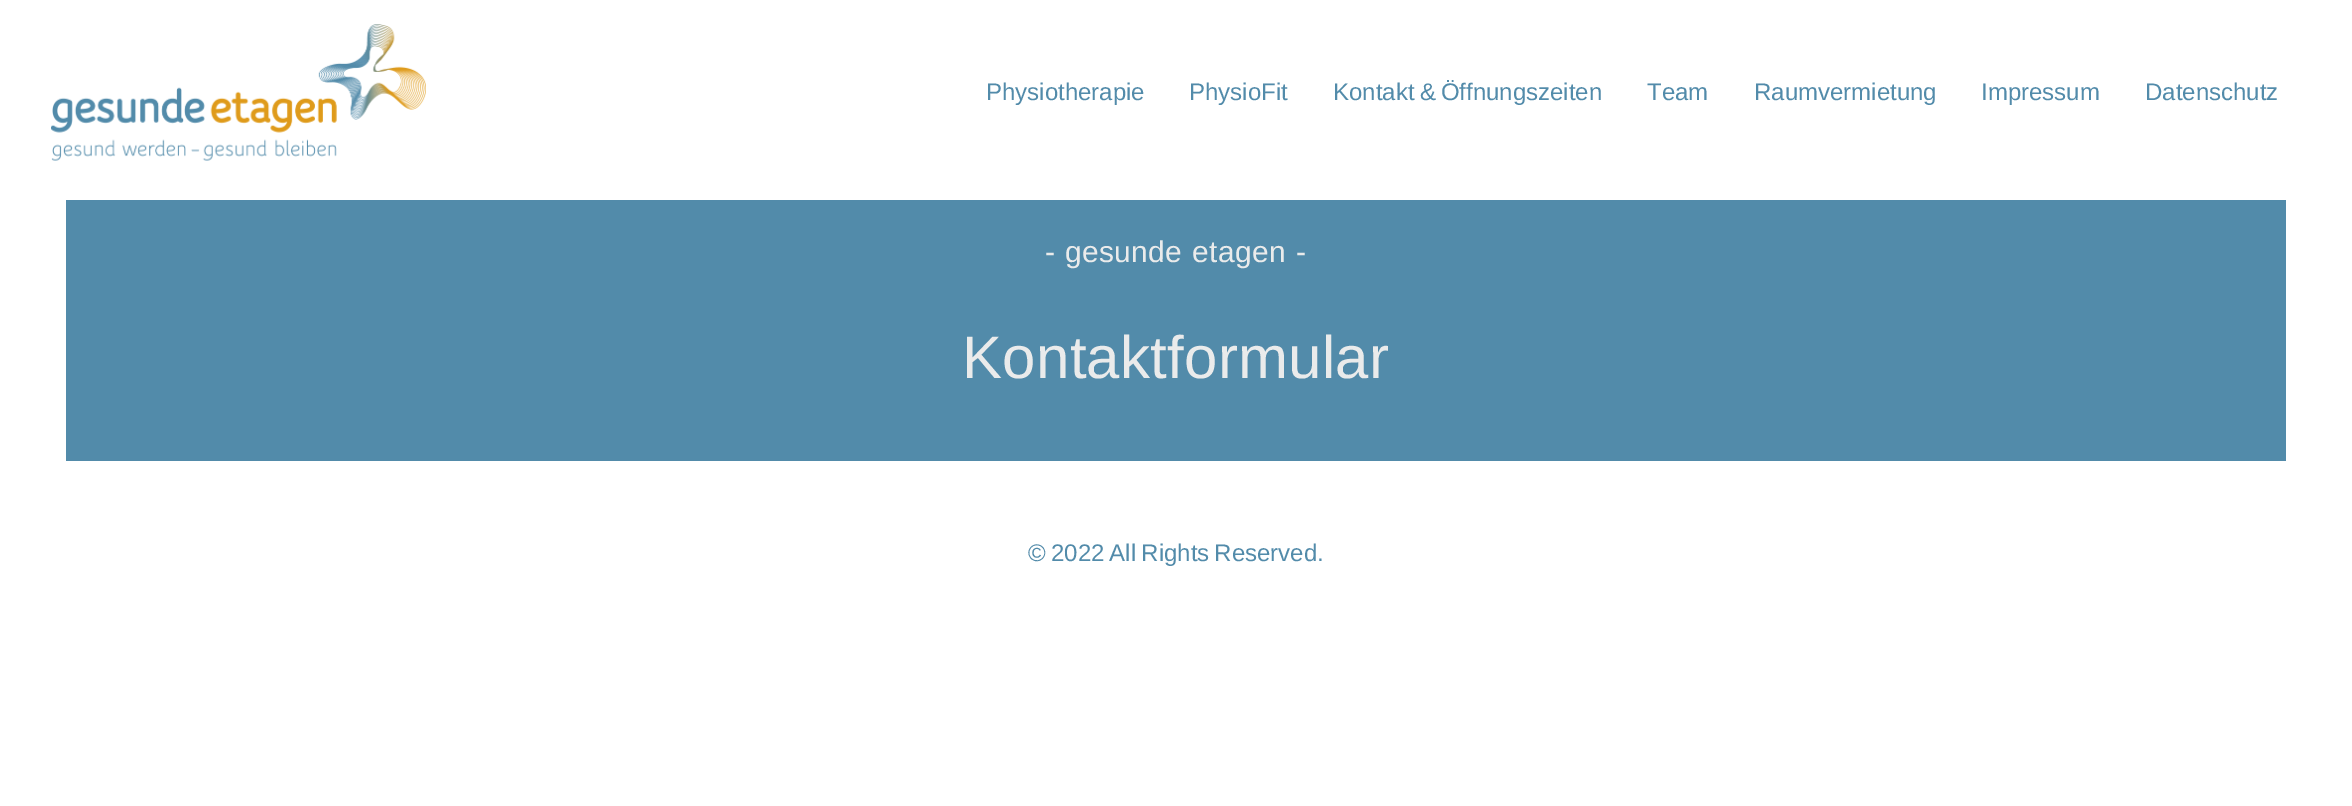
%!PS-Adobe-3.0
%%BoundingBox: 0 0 2352 806
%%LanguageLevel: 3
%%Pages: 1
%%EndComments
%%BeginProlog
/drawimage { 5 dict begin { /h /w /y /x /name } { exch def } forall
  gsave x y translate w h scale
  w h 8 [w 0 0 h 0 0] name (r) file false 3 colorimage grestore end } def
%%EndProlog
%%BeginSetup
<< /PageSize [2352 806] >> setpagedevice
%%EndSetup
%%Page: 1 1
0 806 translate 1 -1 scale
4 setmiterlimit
1 setgray
0 0 2352 806 rectfill
(images/1.raw) 51 24 375 137 drawimage
0.322 0.545 0.667 setrgbcolor
66 200 2220 261 rectfill
/LiberationSans-Regular [24 0 0 -24 0 0] selectfont
986 100 moveto (Physiotherapie) show
1189 100 moveto (PhysioFit) show
1333 100 moveto -1.5 0 32 (Kontakt & Öffnungszeiten) widthshow
1647 100 moveto (Team) show
1754 100 moveto (Raumvermietung) show
1981 100 moveto (Impressum) show
2145 100 moveto (Datenschutz) show
/LiberationSans-Regular [30 0 0 -30 0 0] selectfont
0.918 0.922 0.922 setrgbcolor
1045 262 moveto 1.5 0 32 0.25 0 (- gesunde etagen -) awidthshow
/LiberationSans-Regular [60 0 0 -60 0 0] selectfont
962 378 moveto 0.25 0 (Kontaktformular) ashow
/LiberationSans-Regular [24 0 0 -24 0 0] selectfont
0.322 0.545 0.667 setrgbcolor
1028 561 moveto -1.5 0 32 (© 2022 All Rights Reserved.) widthshow
showpage
%%EOF
